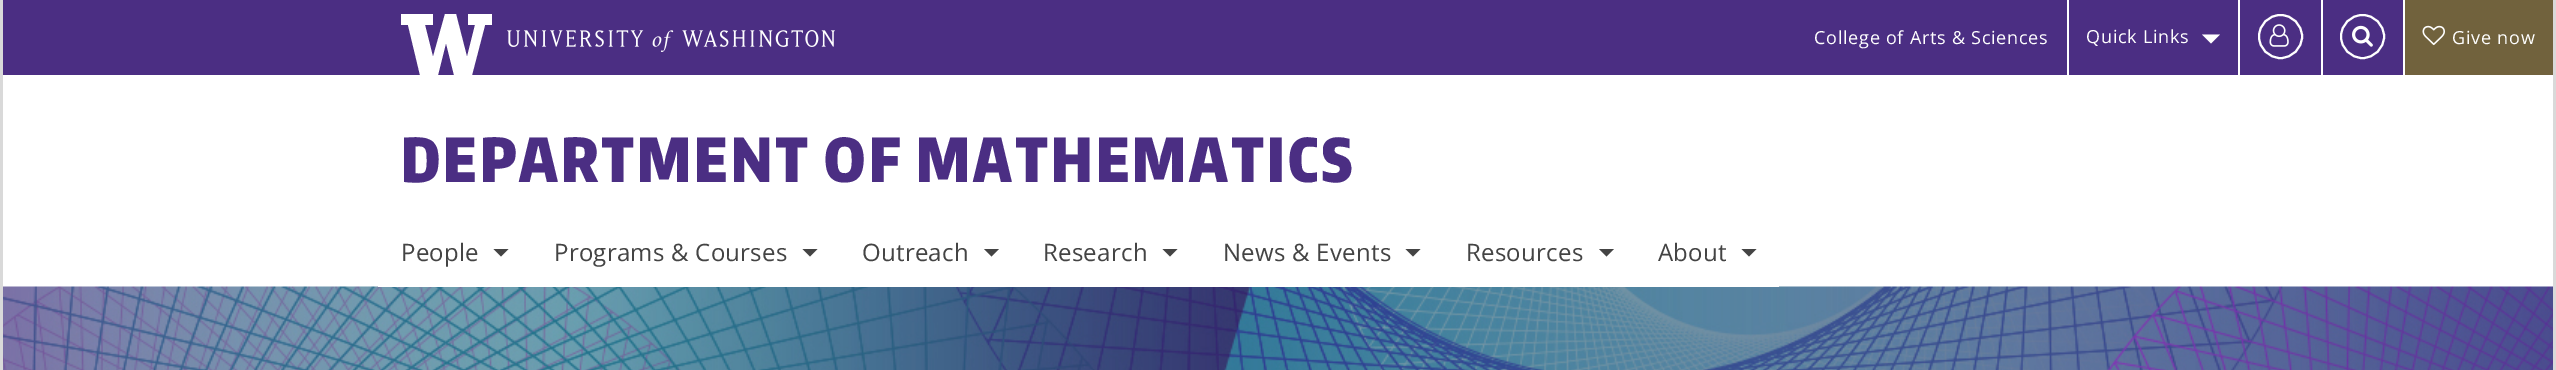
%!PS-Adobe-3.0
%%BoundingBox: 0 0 2556 370
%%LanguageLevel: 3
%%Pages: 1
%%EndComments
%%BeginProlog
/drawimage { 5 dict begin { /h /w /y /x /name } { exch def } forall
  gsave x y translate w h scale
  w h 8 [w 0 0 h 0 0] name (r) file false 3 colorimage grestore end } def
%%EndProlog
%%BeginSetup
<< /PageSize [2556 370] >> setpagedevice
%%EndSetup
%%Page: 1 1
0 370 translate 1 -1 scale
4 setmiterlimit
0.851 setgray
0 0 2556 370 rectfill
1 setgray
3 75 2550 212 rectfill
0.294 0.18 0.514 setrgbcolor
3 0 2400 75 rectfill
gsave
401 14 91 61 rectclip
1 setgray
newpath 468 14 moveto 468 25 lineto 475 25 lineto 467 57 lineto 456 14 lineto 445 14 lineto 433 57 lineto 425 25 lineto 433 25 lineto 433 14 lineto 400 14 lineto 400 25 lineto 408 25 lineto 420 75 lineto 438 75 lineto 446 43 lineto 454 75 lineto 472 75 lineto 485 25 lineto 492 25 lineto 492 14 lineto closepath fill
grestore
(images/1.raw) 507 30 328 22 drawimage
1 setgray
2067 0 2 75 rectfill
newpath 2202 34.5 moveto 2220 34.5 lineto 2211 43.5 lineto closepath fill
2238 0 2 75 rectfill
2 setlinewidth
newpath 2280.5 36.5 21.5 0 360 arc closepath stroke
(images/2.raw) 2269 24 20 23 drawimage
2321 0 2 75 rectfill
newpath 2362.5 36.5 21.5 0 360 arc closepath stroke
(images/3.raw) 2352 25 21 22 drawimage
0.443 0.384 0.239 setrgbcolor
2405 0 148 75 rectfill
1 setgray
2403 0 2 75 rectfill
(images/4.raw) 2422 25 23 21 drawimage
(images/5.raw) 3 286 2550 84 drawimage
378 286 1401 1 rectfill
0.267 setgray
newpath 493.5 249 moveto 508.5 249 lineto 501 256.5 lineto closepath fill
newpath 802.5 249 moveto 817.5 249 lineto 810 256.5 lineto closepath fill
newpath 984 249 moveto 999 249 lineto 991.5 256.5 lineto closepath fill
newpath 1162.5 249 moveto 1177.5 249 lineto 1170 256.5 lineto closepath fill
newpath 1405.5 249 moveto 1420.5 249 lineto 1413 256.5 lineto closepath fill
newpath 1599 249 moveto 1614 249 lineto 1606.5 256.5 lineto closepath fill
newpath 1741.5 249 moveto 1756.5 249 lineto 1749 256.5 lineto closepath fill
/OpenSans-Regular [18 0 0 -18 0 0] selectfont
1 setgray
1814 44 moveto 0.75 0 (College of Arts & Sciences) ashow
2086 43 moveto 0.75 0 (Quick Links) ashow
2452 44 moveto 0.75 0 (Give now) ashow
/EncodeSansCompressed-Black [60 0 0 -60 0 0] selectfont
0.294 0.18 0.514 setrgbcolor
401 182 moveto 3 0 (DEPARTMENT OF MATHEMATICS) ashow
/OpenSans-Regular [24 0 0 -24 0 0] selectfont
0.267 setgray
401 261 moveto 0.25 0 (People) ashow
554 261 moveto 0.25 0 (Programs & Courses) ashow
862 261 moveto 0.25 0 (Outreach) ashow
1043 261 moveto 0.25 0 (Research) ashow
1223 261 moveto 0.25 0 (News & Events) ashow
1466 261 moveto 0.25 0 (Resources) ashow
1658 261 moveto 0.25 0 (About) ashow
showpage
%%EOF
